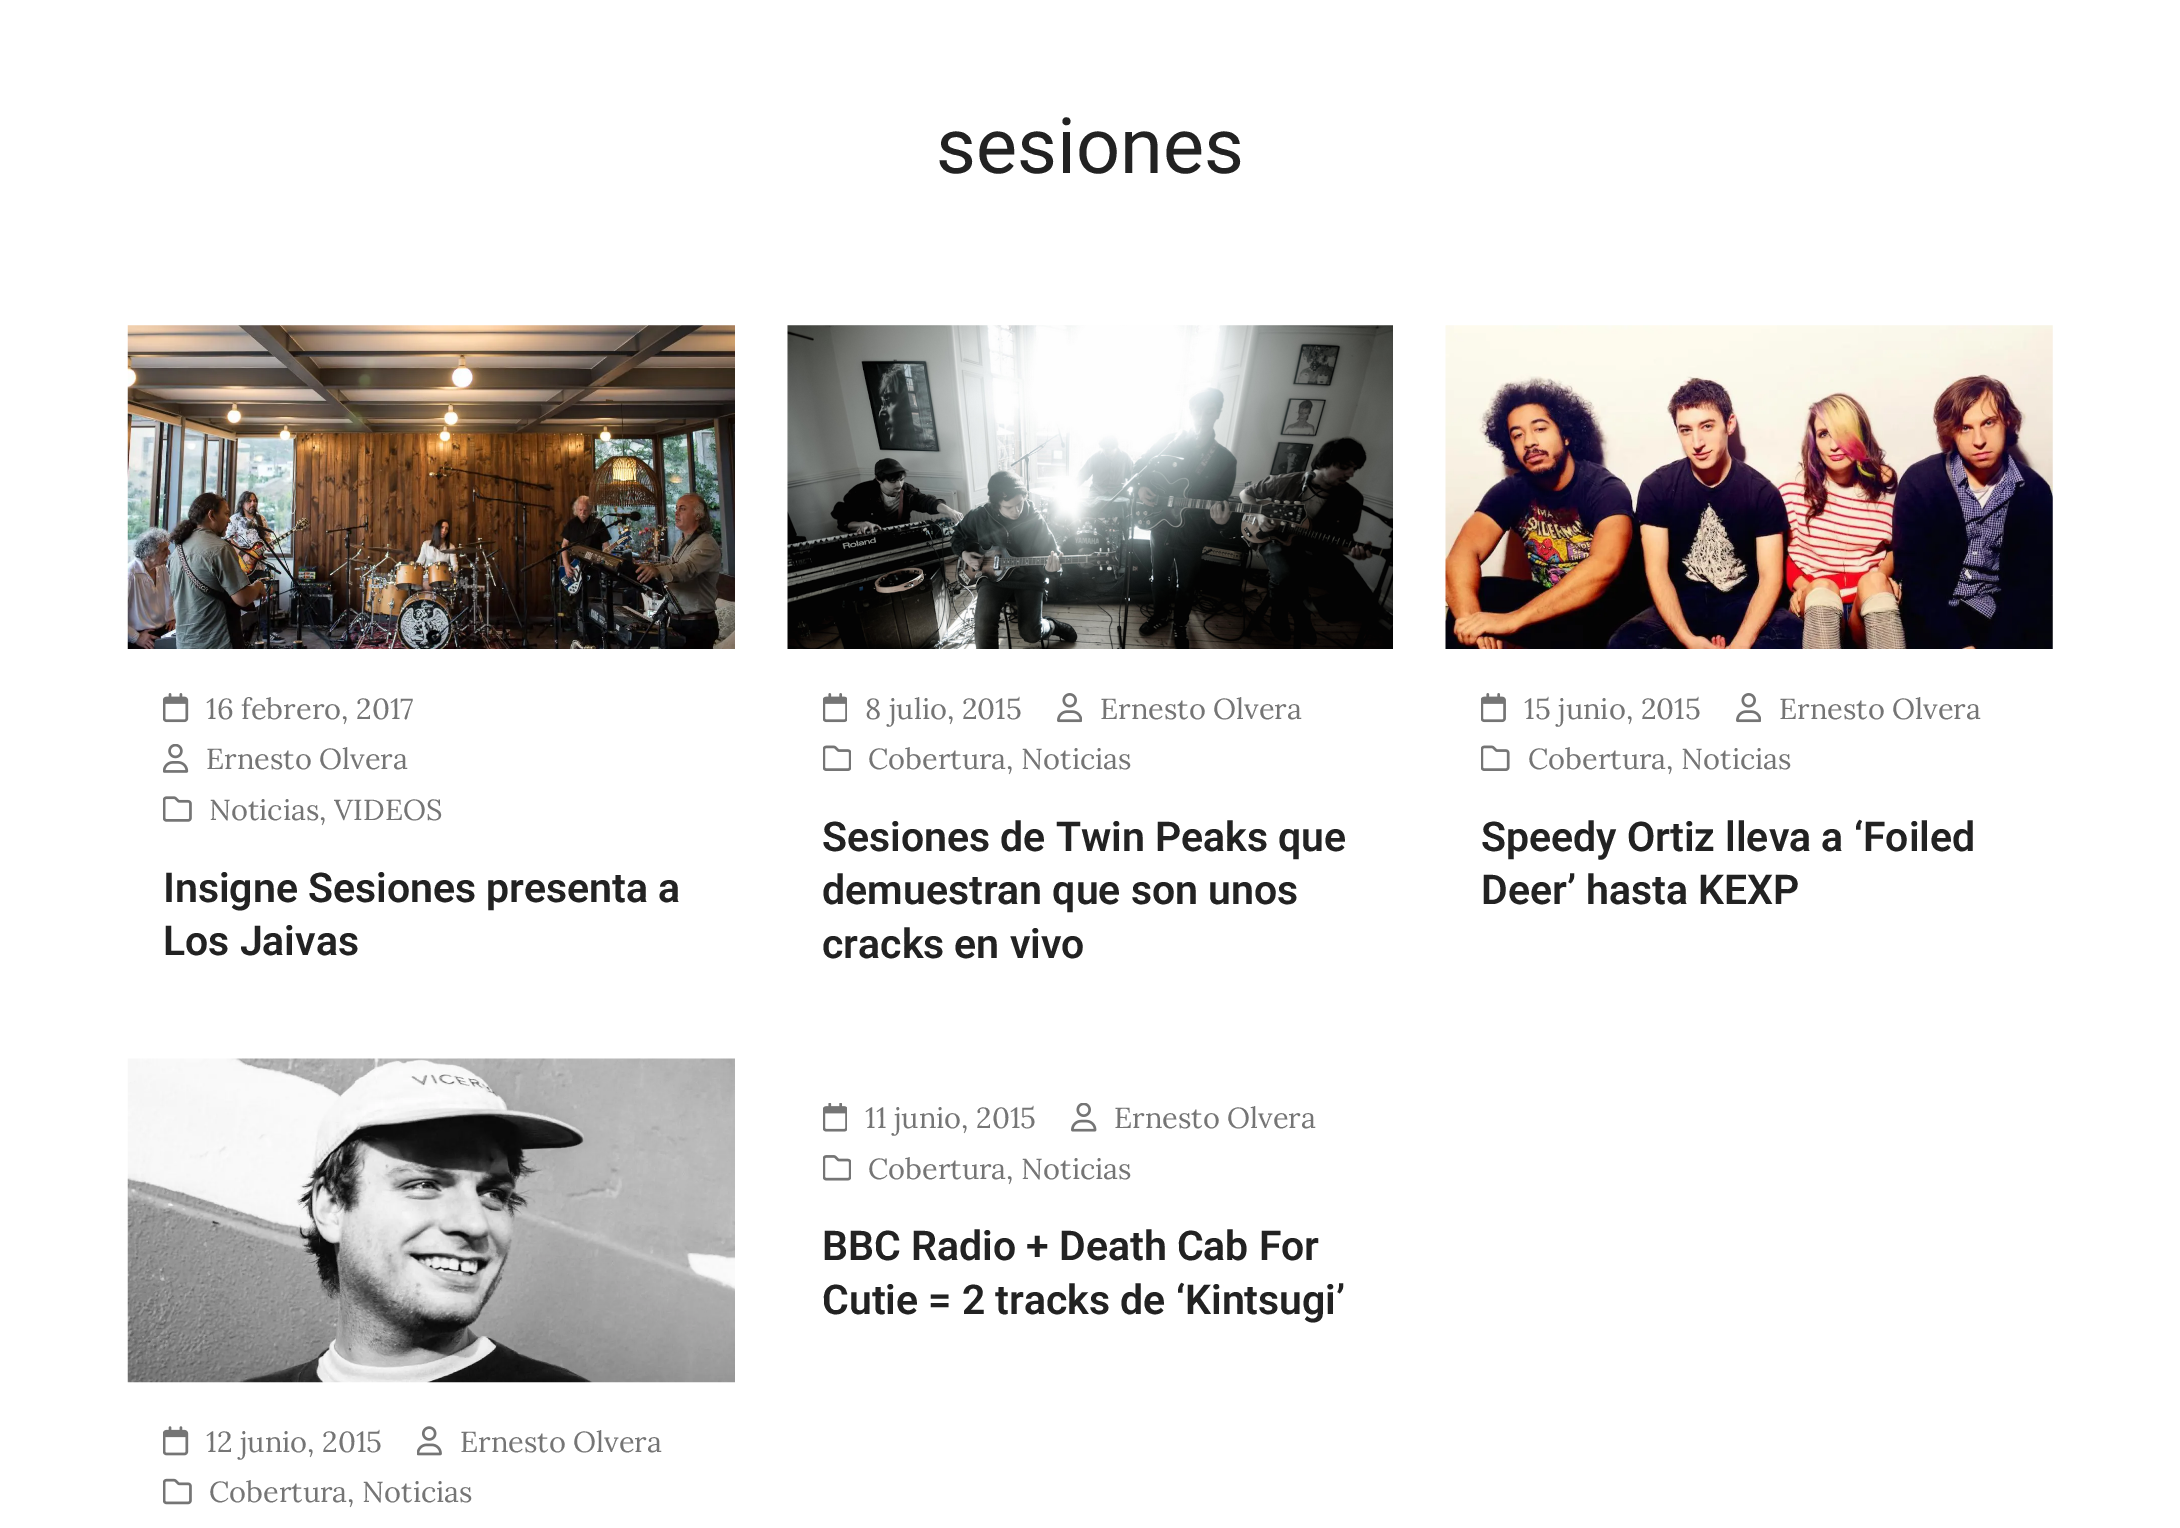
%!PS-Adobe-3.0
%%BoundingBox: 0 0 2180 1528
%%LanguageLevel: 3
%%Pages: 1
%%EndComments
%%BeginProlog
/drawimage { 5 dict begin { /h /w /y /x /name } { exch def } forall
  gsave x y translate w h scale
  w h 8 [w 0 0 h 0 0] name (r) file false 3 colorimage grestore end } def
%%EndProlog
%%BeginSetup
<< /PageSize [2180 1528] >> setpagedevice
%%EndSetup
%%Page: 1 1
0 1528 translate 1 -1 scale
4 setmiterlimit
1 setgray
0 0 2180 1528 rectfill
(images/1.raw) 127 325 608 324 drawimage
(images/2.raw) 163 693 26 30 drawimage
(images/3.raw) 163 744 26 29 drawimage
(images/4.raw) 163 796 29 26 drawimage
(images/5.raw) 787 325 606 324 drawimage
(images/6.raw) 823 693 24 30 drawimage
(images/7.raw) 1057 693 25 30 drawimage
(images/8.raw) 823 745 28 26 drawimage
(images/9.raw) 1445 325 608 324 drawimage
(images/10.raw) 1481 693 25 30 drawimage
(images/7.raw) 1736 693 25 30 drawimage
(images/11.raw) 1481 745 29 26 drawimage
(images/12.raw) 823 1103 24 29 drawimage
(images/13.raw) 1071 1103 26 29 drawimage
(images/14.raw) 823 1155 28 26 drawimage
(images/15.raw) 127 1058 608 325 drawimage
(images/16.raw) 163 1426 26 30 drawimage
(images/17.raw) 417 1426 25 30 drawimage
(images/18.raw) 163 1478 29 27 drawimage
/Roboto-Regular [77.5 0 0 -77.5 0 0] selectfont
0.133 setgray
936 173 moveto (sesiones) show
/Lora-Regular [29 0 0 -29 0 0] selectfont
0.459 setgray
206 719 moveto (16 febrero, 2017) show
206 769 moveto (Ernesto Olvera) show
209 820 moveto (Noticias, VIDEOS) show
/Roboto-SemiBold [41 0 0 -41 0 0] selectfont
0.133 setgray
163 902 moveto (Insigne Sesiones presenta a) show
163 955 moveto (Los Jaivas) show
/Lora-Regular [29 0 0 -29 0 0] selectfont
0.459 setgray
865 719 moveto (8 julio, 2015) show
1100 719 moveto (Ernesto Olvera) show
868 769 moveto (Cobertura, Noticias) show
/Roboto-SemiBold [41 0 0 -41 0 0] selectfont
0.133 setgray
822 851 moveto (Sesiones de Twin Peaks que) show
822 904 moveto (demuestran que son unos) show
822 958 moveto (cracks en vivo) show
/Lora-Regular [29 0 0 -29 0 0] selectfont
0.459 setgray
1524 719 moveto (15 junio, 2015) show
1779 719 moveto (Ernesto Olvera) show
1528 769 moveto (Cobertura, Noticias) show
/Roboto-SemiBold [41 0 0 -41 0 0] selectfont
0.133 setgray
1481 851 moveto (Speedy Ortiz lleva a ‘Foiled) show
1481 904 moveto (Deer’ hasta KEXP) show
/Lora-Regular [29 0 0 -29 0 0] selectfont
0.459 setgray
865 1128 moveto (11 junio, 2015) show
1114 1128 moveto (Ernesto Olvera) show
868 1179 moveto (Cobertura, Noticias) show
/Roboto-SemiBold [41 0 0 -41 0 0] selectfont
0.133 setgray
822 1260 moveto (BBC Radio + Death Cab For) show
822 1314 moveto (Cutie = 2 tracks de ‘Kintsugi’) show
/Lora-Regular [29 0 0 -29 0 0] selectfont
0.459 setgray
206 1452 moveto (12 junio, 2015) show
460 1452 moveto (Ernesto Olvera) show
209 1502 moveto (Cobertura, Noticias) show
showpage
%%EOF
